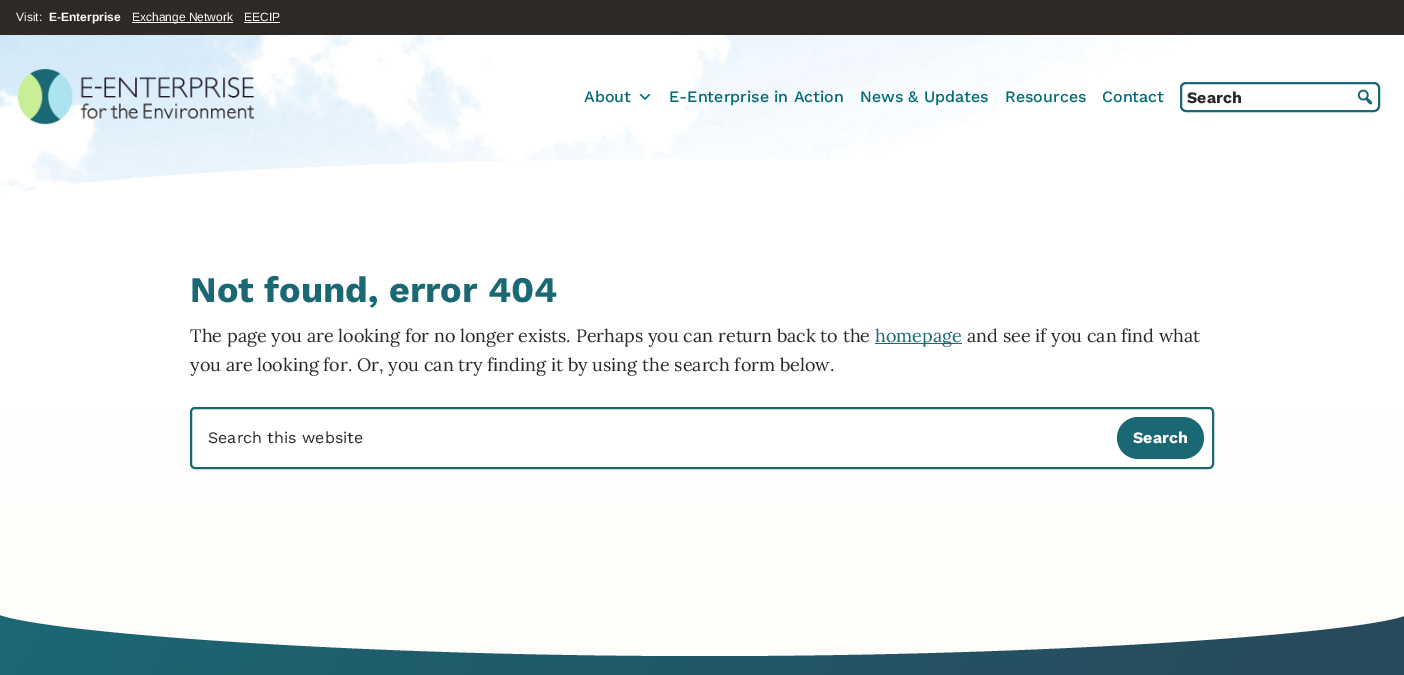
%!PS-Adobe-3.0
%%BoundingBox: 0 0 1404 675
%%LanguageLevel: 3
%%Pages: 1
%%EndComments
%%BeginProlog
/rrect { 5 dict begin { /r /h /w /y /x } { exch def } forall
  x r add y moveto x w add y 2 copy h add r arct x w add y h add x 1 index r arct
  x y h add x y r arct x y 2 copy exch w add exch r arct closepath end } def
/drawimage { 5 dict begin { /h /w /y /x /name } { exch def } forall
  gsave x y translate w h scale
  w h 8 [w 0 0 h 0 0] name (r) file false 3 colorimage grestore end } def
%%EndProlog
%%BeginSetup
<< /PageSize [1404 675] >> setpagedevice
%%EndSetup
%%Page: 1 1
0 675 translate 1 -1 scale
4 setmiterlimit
1 setgray
0 0 1404 675 rectfill
(images/1.raw) 0 35 1404 163 drawimage
0.176 0.161 0.149 setrgbcolor
0 0 1404 35 rectfill
1 0.996 0.984 setrgbcolor
132 22 101 1 rectfill
244 22 36 1 rectfill
(images/2.raw) 17 68 238 57 drawimage
(images/3.raw) 639 93 12 7 drawimage
0.106 0.408 0.459 setrgbcolor
2 setlinewidth
1181 83 198 28 5 rrect stroke
(images/4.raw) 1357 89 16 16 drawimage
1 setgray
newpath 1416 205 moveto 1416 182 1097 159 704 159 curveto 310 159 -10 182 -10 205 curveto closepath fill
gsave newpath 0 409 moveto 1404 409 lineto 1404 611 lineto 0 611 lineto closepath clip newpath
<< /ShadingType 2 /ColorSpace /DeviceRGB /Coords [702 205 702 613] /Extend [true true] /Function << /FunctionType 2 /Domain [0 1] /C0 [1 1 1] /C1 [1 0.992 0.98] /N 1 >> >> shfill grestore
0.106 0.408 0.459 setrgbcolor
875 343 87 1 rectfill
1 setgray
191 408 1022 60 4 rrect gsave fill grestore
0.106 0.408 0.459 setrgbcolor
stroke
1117 417 87 42 21 rrect fill
gsave newpath 0 615 moveto 1404 615 lineto 1404 675 lineto 0 675 lineto closepath clip newpath
<< /ShadingType 2 /ColorSpace /DeviceRGB /Coords [35 551 1369 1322] /Extend [true true] /Function << /FunctionType 3 /Domain [0 1] /Functions [<< /FunctionType 2 /Domain [0 1] /C0 [0.106 0.408 0.459] /C1 [0.153 0.294 0.361] /N 1 >> << /FunctionType 2 /Domain [0 1] /C0 [0.153 0.294 0.361] /C1 [0.153 0.294 0.361] /N 1 >>] /Bounds [0.75] /Encode [0 1 0 1] >> >> shfill grestore
1 0.992 0.98 setrgbcolor
newpath 0 615 moveto 47 632 345 656 704 656 curveto 1061 656 1355 633 1404 616 curveto 1404 611 lineto 0 611 lineto closepath fill
/LiberationSans-Regular [12 0 0 -12 0 0] selectfont
1 0.996 0.984 setrgbcolor
16 21 moveto (Visit:) show
/LiberationSans-Bold [12 0 0 -12 0 0] selectfont
49 21 moveto (E-Enterprise) show
/LiberationSans-Regular [12 0 0 -12 0 0] selectfont
132 21 moveto (Exchange Network) show
244 21 moveto (EECIP) show
/WorkSans-Medium [16 0 0 -16 0 0] selectfont
0.016 0.42 0.463 setrgbcolor
584 102 moveto (About) show
669 102 moveto (E-Enterprise in Action) show
860 102 moveto (News & Updates) show
1005 102 moveto (Resources) show
1102 102 moveto (Contact) show
/WorkSans-Bold [16 0 0 -16 0 0] selectfont
0.176 0.161 0.149 setrgbcolor
1187 103 moveto (Search) show
/WorkSans-Bold [36 0 0 -36 0 0] selectfont
0.106 0.408 0.459 setrgbcolor
190 302 moveto (Not found, error 404) show
/Lora-Regular [18 0 0 -18 0 0] selectfont
0.176 0.161 0.149 setrgbcolor
190 342 moveto (The page you are looking for no longer exists. Perhaps you can return back to the) show
0.106 0.408 0.459 setrgbcolor
875 342 moveto (homepage) show
0.176 0.161 0.149 setrgbcolor
967 342 moveto (and see if you can find what) show
190 371 moveto (you are looking for. Or, you can try finding it by using the search form below.) show
/WorkSans-Regular [16 0 0 -16 0 0] selectfont
208 443 moveto (Search this website) show
/WorkSans-Bold [16 0 0 -16 0 0] selectfont
1 0.996 0.984 setrgbcolor
1133 443 moveto (Search) show
showpage
%%EOF
